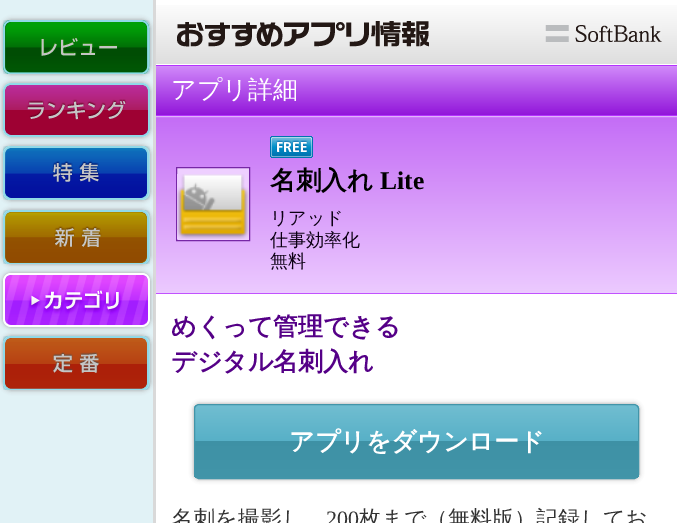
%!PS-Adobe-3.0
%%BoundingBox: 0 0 677 523
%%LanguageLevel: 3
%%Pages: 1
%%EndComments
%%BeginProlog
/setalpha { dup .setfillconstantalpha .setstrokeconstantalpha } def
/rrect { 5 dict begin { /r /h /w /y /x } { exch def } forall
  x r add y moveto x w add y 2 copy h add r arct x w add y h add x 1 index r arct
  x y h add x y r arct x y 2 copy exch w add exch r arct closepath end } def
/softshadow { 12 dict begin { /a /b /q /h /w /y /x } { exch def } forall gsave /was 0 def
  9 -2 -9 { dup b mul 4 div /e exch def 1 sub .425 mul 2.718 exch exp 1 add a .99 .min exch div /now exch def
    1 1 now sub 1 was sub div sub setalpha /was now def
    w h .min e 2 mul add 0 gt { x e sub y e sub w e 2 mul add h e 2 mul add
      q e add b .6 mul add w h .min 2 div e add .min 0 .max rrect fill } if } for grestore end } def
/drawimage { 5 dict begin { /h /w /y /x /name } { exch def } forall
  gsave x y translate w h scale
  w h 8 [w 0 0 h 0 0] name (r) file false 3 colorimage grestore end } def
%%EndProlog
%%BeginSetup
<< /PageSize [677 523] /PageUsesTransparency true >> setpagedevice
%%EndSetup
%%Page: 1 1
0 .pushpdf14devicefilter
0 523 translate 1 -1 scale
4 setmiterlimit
1 setgray
0 0 677 523 rectfill
gsave newpath 156 5 moveto 677 5 lineto 677 64 lineto 156 64 lineto closepath clip newpath
<< /ShadingType 2 /ColorSpace /DeviceRGB /Coords [156 0 156 64] /Extend [true true] /Function << /FunctionType 2 /Domain [0 1] /C0 [1 1 1] /C1 [0.871 0.871 0.871] /N 1 >> >> shfill grestore
(images/1.raw) 177 21 252 26 drawimage
(images/2.raw) 545 25 117 17 drawimage
0.882 0.949 0.965 setrgbcolor
0 0 153 523 rectfill
0.851 setgray
153 0 3 523 rectfill
gsave newpath 156 66 moveto 677 66 lineto 677 115 lineto 156 115 lineto closepath clip newpath
<< /ShadingType 2 /ColorSpace /DeviceRGB /Coords [156 66 156 115] /Extend [true true] /Function << /FunctionType 3 /Domain [0 1] /Functions [<< /FunctionType 2 /Domain [0 1] /C0 [0.894 0.733 0.988] /C1 [0.816 0.533 0.98] /N 1 >> << /FunctionType 2 /Domain [0 1] /C0 [0.816 0.533 0.98] /C1 [0.573 0.086 0.855] /N 1 >>] /Bounds [0.01] /Encode [0 1 0 1] >> >> shfill grestore
0.71 0.2 0.996 setrgbcolor
156 65 521 1 rectfill
0.631 setgray
3 20 147 54 8 2.5 1 softshadow
(images/3.raw) 3 20 147 54 drawimage
gsave newpath 156 116 moveto 677 116 lineto 677 293 lineto 156 293 lineto closepath clip newpath
<< /ShadingType 2 /ColorSpace /DeviceRGB /Coords [156 116 156 293] /Extend [true true] /Function << /FunctionType 3 /Domain [0 1] /Functions [<< /FunctionType 2 /Domain [0 1] /C0 [0.929 0.812 1] /C1 [0.769 0.427 0.965] /N 1 >> << /FunctionType 2 /Domain [0 1] /C0 [0.769 0.427 0.965] /C1 [0.925 0.792 1] /N 1 >>] /Bounds [0.01] /Encode [0 1 0 1] >> >> shfill grestore
0.71 0.2 0.996 setrgbcolor
156 115 521 1 rectfill
0.631 setgray
3 83 147 54 8 2.5 1 softshadow
(images/4.raw) 3 83 147 54 drawimage
3 146 147 54 8 2.5 1 softshadow
(images/5.raw) 3 146 147 54 drawimage
3 210 147 54 8 2.5 1 softshadow
(images/6.raw) 3 210 147 54 drawimage
0.757 0.322 1 setrgbcolor
156 293 521 1 rectfill
0.631 setgray
3 273 147 54 8 2.5 1 softshadow
(images/7.raw) 3 273 147 54 drawimage
3 336 147 54 8 2.5 1 softshadow
(images/8.raw) 3 336 147 54 drawimage
0.933 0.812 1 setrgbcolor
newpath 176.5 167.5 moveto 249.5 167.5 lineto 249.5 240.5 lineto 176.5 240.5 lineto closepath gsave fill grestore
0.467 0.153 0.651 setrgbcolor
stroke
(images/9.raw) 177 174 72 65 drawimage
(images/10.raw) 270 136 43 22 drawimage
0.639 setgray
194 404 445 75 5 2.5 1 softshadow
gsave
194 404 445 75 5 rrect clip newpath
gsave newpath 194 405 moveto 639 405 lineto 639 478 lineto 194 478 lineto closepath clip newpath
<< /ShadingType 2 /ColorSpace /DeviceRGB /Coords [195 405 195 478] /Extend [true true] /Function << /FunctionType 3 /Domain [0 1] /Functions [<< /FunctionType 2 /Domain [0 1] /C0 [0.443 0.745 0.82] /C1 [0.341 0.69 0.78] /N 1 >> << /FunctionType 2 /Domain [0 1] /C0 [0.243 0.569 0.647] /C1 [0.259 0.584 0.663] /N 1 >>] /Bounds [0.5] /Encode [0 1 0 1] >> >> shfill grestore
grestore
0.259 0.584 0.663 setrgbcolor
194.5 404.5 444 74 4.5 rrect stroke
/WenQuanYiZenHei-Medium [25 0 0 -25 0 0] selectfont
1 setgray
171 98 moveto (アプリ詳細) show
/WenQuanYiZenHei-Bold [25.5 0 0 -25.5 0 0] selectfont
0 setgray
270 189 moveto (名刺入れ) show
/LiberationSerif-Bold [25.5 0 0 -25.5 0 0] selectfont
380 189 moveto (Lite) show
/WenQuanYiZenHei-Medium [18 0 0 -18 0 0] selectfont
0.047 0 0.075 setrgbcolor
270 224 moveto (リアッド) show
270 246 moveto (仕事効率化) show
270 267 moveto (無料) show
/WenQuanYiZenHei-Bold [25 0 0 -25 0 0] selectfont
0.333 0 0.529 setrgbcolor
171 335 moveto (めくって管理できる) show
171 370 moveto (デジタル名刺入れ) show
1 setgray
289 450 moveto (アプリをダウンロード) show
/WenQuanYiZenHei-Medium [22 0 0 -22 0 0] selectfont
0.2 setgray
171 526 moveto (名刺を撮影し) show
/LiberationSerif-Regular [22 0 0 -22 0 0] selectfont
326 526 moveto (200) show
/WenQuanYiZenHei-Medium [22 0 0 -22 0 0] selectfont
359 526 moveto (枚まで（無料版）記録してお) show
.poppdf14devicefilter showpage
%%EOF
